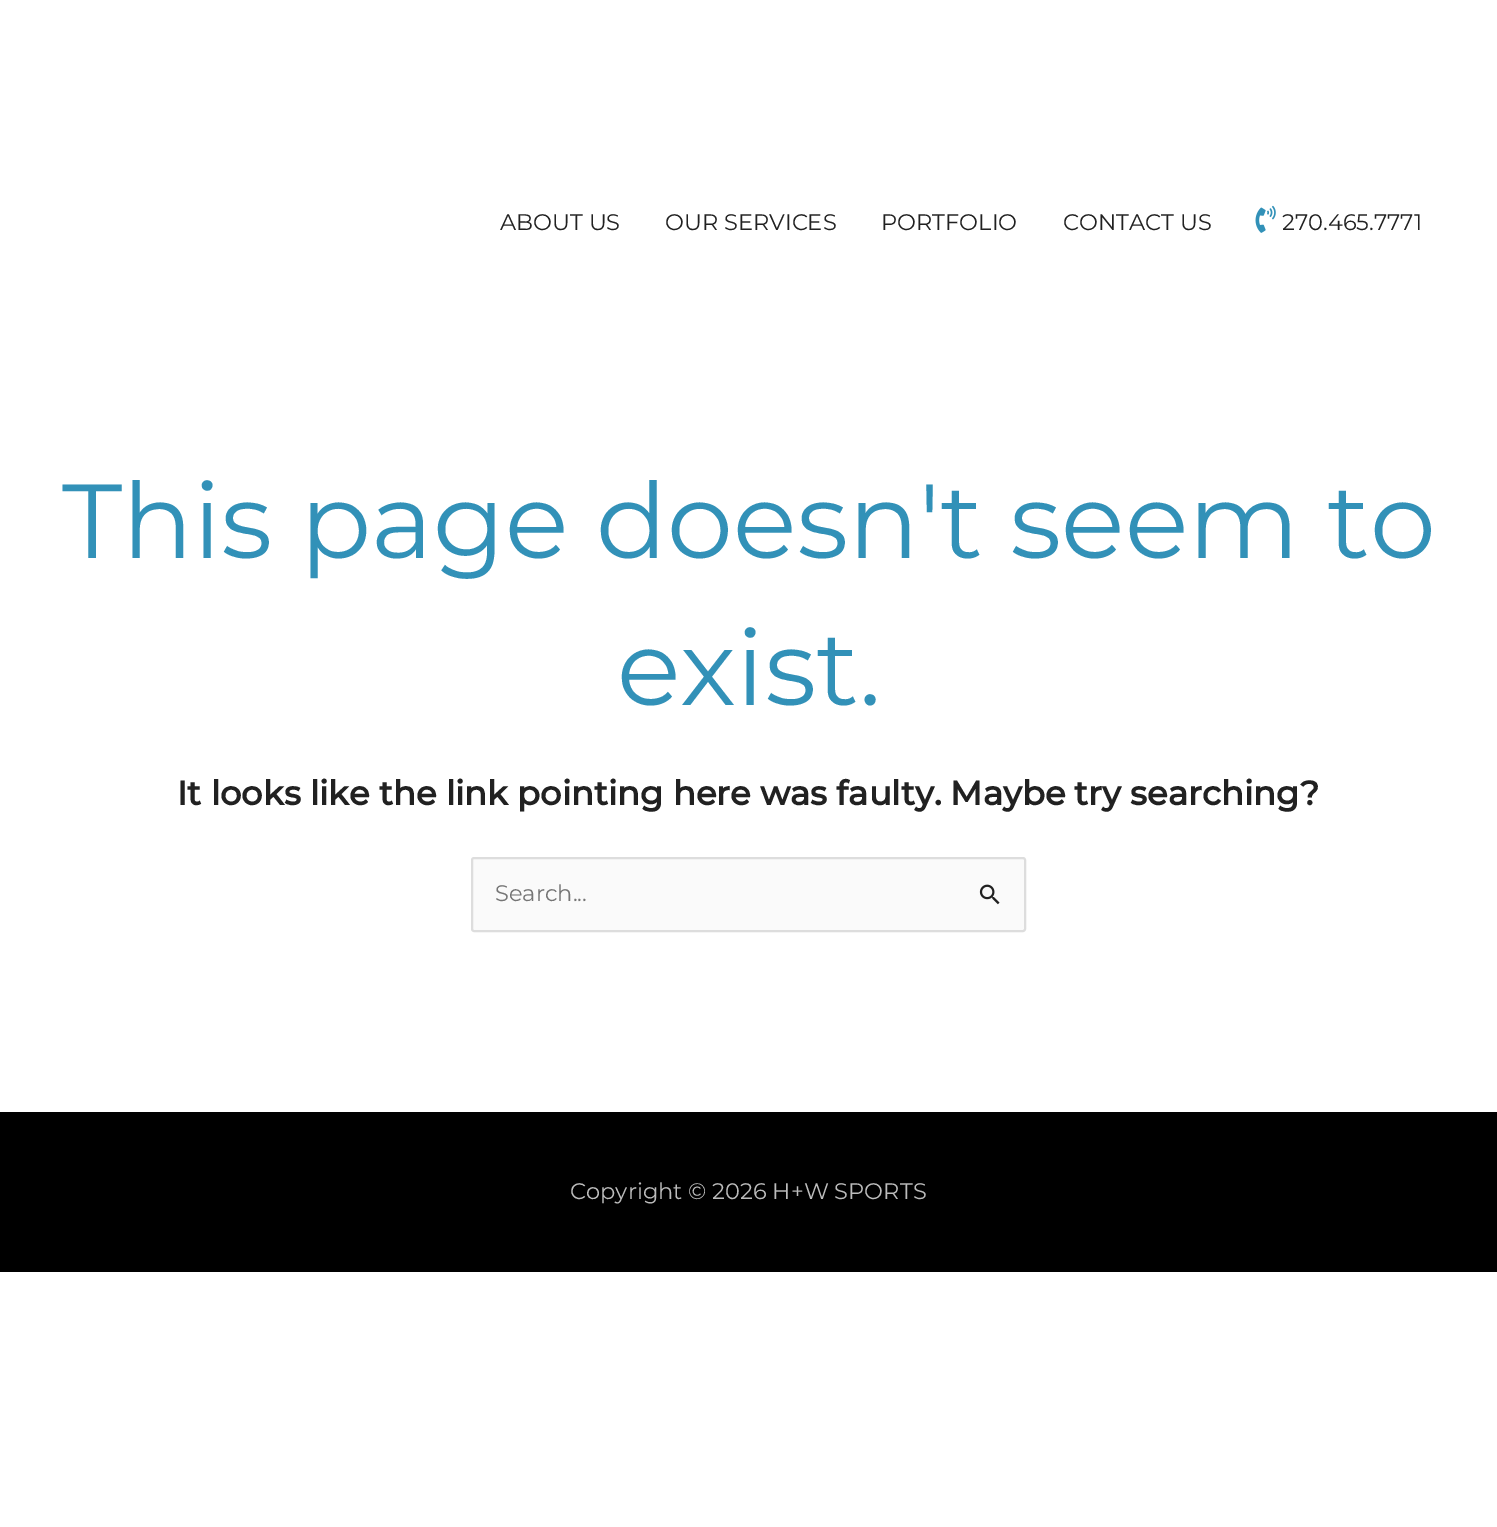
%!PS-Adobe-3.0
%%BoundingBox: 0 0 1497 1527
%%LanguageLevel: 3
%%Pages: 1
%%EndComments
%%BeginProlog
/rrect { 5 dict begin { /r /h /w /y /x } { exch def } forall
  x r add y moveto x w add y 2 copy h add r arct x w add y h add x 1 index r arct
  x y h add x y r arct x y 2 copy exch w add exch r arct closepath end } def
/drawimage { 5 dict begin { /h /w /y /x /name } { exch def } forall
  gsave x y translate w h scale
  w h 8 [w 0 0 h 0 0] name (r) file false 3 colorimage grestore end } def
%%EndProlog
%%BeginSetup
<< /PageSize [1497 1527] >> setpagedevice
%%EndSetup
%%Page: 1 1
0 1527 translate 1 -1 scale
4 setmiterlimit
1 setgray
0 0 1497 1527 rectfill
(images/1.raw) 1255 205 21 28 drawimage
0.98 setgray
472 858 553 73 2 rrect gsave fill grestore
0.867 setgray
2 setlinewidth
stroke
(images/2.raw) 979 884 21 21 drawimage
0 setgray
0 1112 1497 160 rectfill
/Montserrat-Regular [22.5 0 0 -22.5 0 0] selectfont
0.129 setgray
500 230 moveto (ABOUT US) show
665 230 moveto (OUR SERVICES) show
881 230 moveto (PORTFOLIO) show
1063 230 moveto (CONTACT US) show
1282 230 moveto (270.465.7771) show
/Montserrat-Regular [105 0 0 -105 0 0] selectfont
0.196 0.569 0.722 setrgbcolor
62 558 moveto (This page doesn't seem to) show
617 705 moveto (exist.) show
/Montserrat-Bold [33.75 0 0 -33.75 0 0] selectfont
0.129 setgray
177 805 moveto (It looks like the link pointing here was faulty. Maybe try searching?) show
/Montserrat-Regular [22.5 0 0 -22.5 0 0] selectfont
0.459 setgray
495 901 moveto (Search...) show
0.737 setgray
570 1199 moveto (Copyright © 2026 H+W SPORTS) show
showpage
%%EOF
